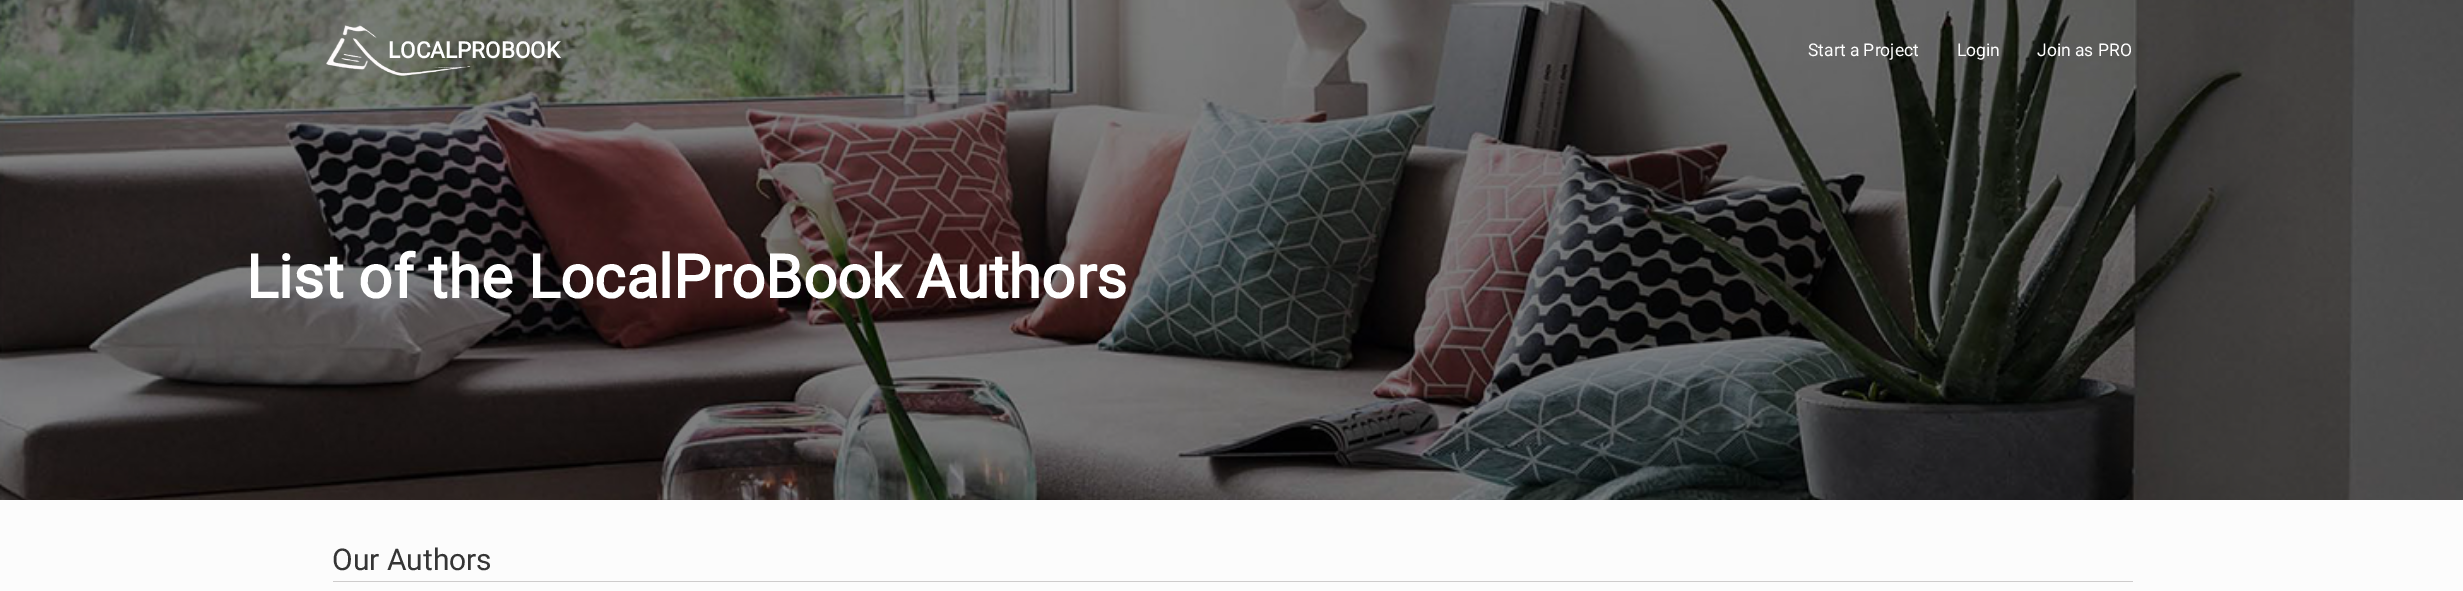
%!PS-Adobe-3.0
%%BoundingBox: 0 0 2463 591
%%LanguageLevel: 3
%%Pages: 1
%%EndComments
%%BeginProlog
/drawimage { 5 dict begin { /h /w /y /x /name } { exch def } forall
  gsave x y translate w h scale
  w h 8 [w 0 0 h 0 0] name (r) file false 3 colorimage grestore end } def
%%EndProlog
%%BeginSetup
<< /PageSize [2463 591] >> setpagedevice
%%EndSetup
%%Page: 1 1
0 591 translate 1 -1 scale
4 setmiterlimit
0.988 setgray
0 0 2463 591 rectfill
0 setgray
0 0 2463 500 rectfill
(images/1.raw) 0 0 2463 500 drawimage
(images/2.raw) 326 25 148 51 drawimage
0.808 0.8 0.8 setrgbcolor
333 581 1800 1 rectfill
/Roboto-Bold [22.5 0 0 -22.5 0 0] selectfont
1 setgray
388 58 moveto (LOCALPROBOOK) show
/Roboto-Regular [17.5 0 0 -17.5 0 0] selectfont
1808 56 moveto (Start a Project) show
1957 56 moveto (Login) show
2037 56 moveto (Join as PRO) show
/Roboto-Bold [60 0 0 -60 0 0] selectfont
246 298 moveto (List of the LocalProBook Authors) show
/Roboto-Regular [30 0 0 -30 0 0] selectfont
0.208 setgray
332 570 moveto (Our Authors) show
showpage
%%EOF
